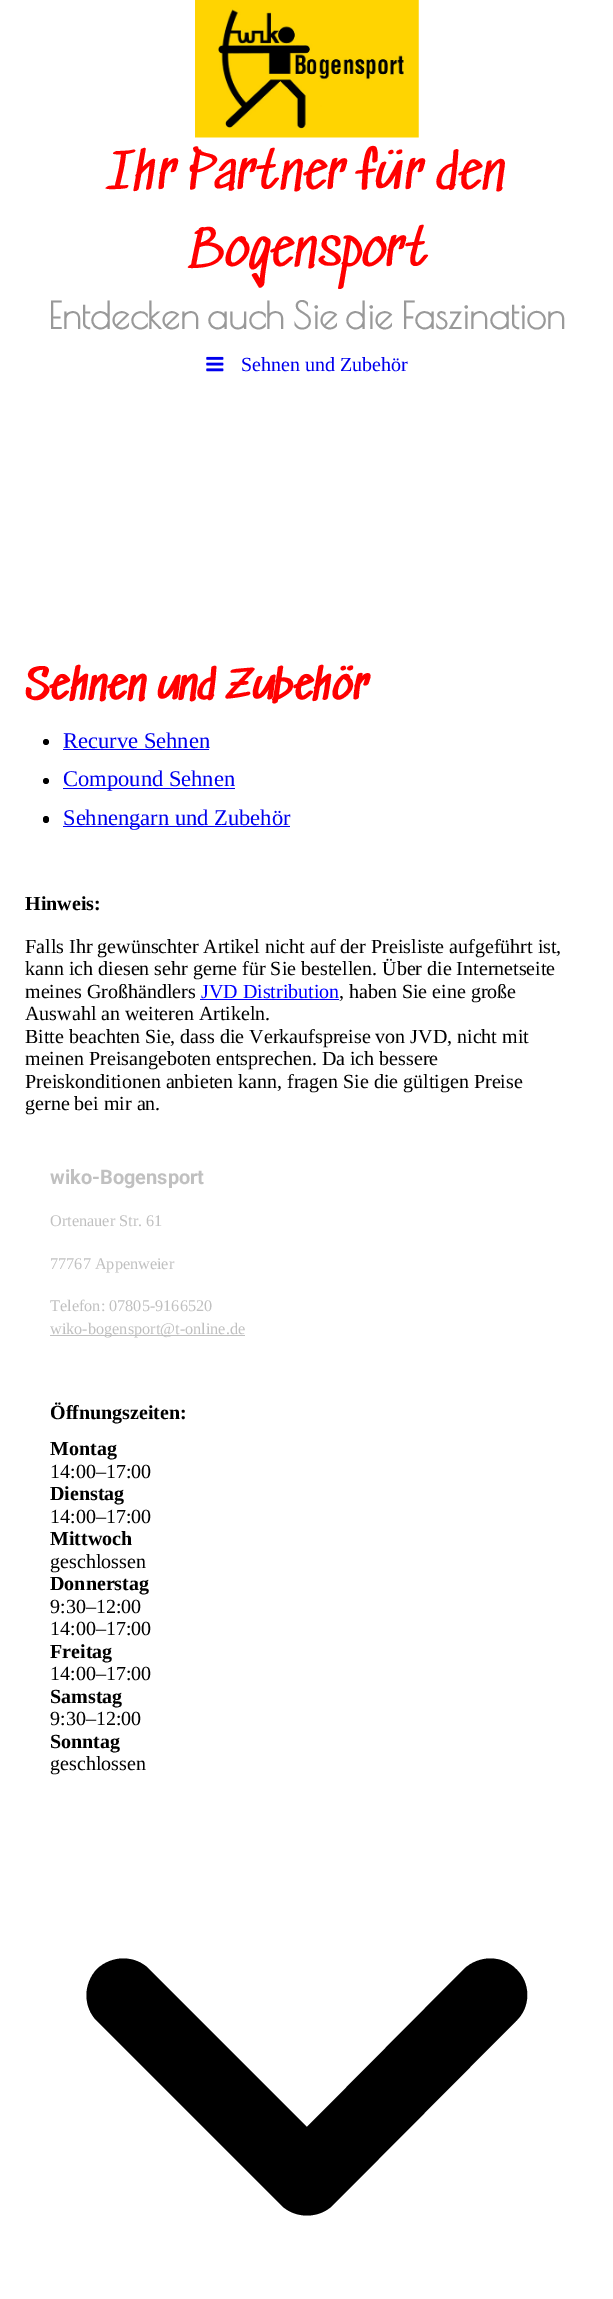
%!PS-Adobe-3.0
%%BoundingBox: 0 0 613 2299
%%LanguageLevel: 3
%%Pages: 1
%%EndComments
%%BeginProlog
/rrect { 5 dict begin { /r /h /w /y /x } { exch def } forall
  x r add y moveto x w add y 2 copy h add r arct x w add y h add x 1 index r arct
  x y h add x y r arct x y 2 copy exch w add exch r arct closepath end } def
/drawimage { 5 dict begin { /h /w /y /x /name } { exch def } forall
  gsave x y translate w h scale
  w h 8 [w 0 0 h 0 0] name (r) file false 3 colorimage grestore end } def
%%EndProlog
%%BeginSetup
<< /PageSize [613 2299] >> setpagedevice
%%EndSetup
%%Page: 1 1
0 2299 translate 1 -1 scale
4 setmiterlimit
1 setgray
0 0 613 2299 rectfill
(images/1.raw) 195 0 224 138 drawimage
(images/2.raw) 206 356 18 16 drawimage
0 setgray
newpath 46 742 3 0 360 arc closepath fill
0 0 0.933 setrgbcolor
63 749 146 1 rectfill
0 setgray
newpath 46 781 3 0 360 arc closepath fill
0 0 0.933 setrgbcolor
63 788 172 1 rectfill
0 setgray
43 816 6 7 3 rrect fill
0 0 0.933 setrgbcolor
63 826 227 1 rectfill
0 0 1 setrgbcolor
200 999 139 1 rectfill
0.753 setgray
50 1335 195 1 rectfill
0 setgray
newpath 281 2205 moveto 295 2219 319 2219 333 2205 curveto 516 2021 lineto 531 2007 531 1983 516 1969 curveto 502 1955 479 1955 464 1969 curveto 307 2127 lineto 149 1969 lineto 135 1955 112 1955 97 1969 curveto 83 1984 83 2007 97 2021 curveto closepath fill
/SedgwickAve-Regular [49 0 0 -49 0 0] selectfont
1 0 0 setrgbcolor
107 191 moveto (Ihr Partner für den) show
186 268 moveto (Bogensport) show
/PoiretOne-Bold [36.8 0 0 -36.8 0 0] selectfont
0.6 setgray
48 329 moveto (Entdecken auch Sie die Faszination) show
/LiberationSerif-Regular [20 0 0 -20 0 0] selectfont
0 0 0.933 setrgbcolor
241 371 moveto (Sehnen und Zubehör) show
/SedgwickAve-Bold [40 0 0 -40 0 0] selectfont
1 0 0 setrgbcolor
25 701 moveto (Sehnen und Zubehör) show
/LiberationSerif-Regular [22.5 0 0 -22.5 0 0] selectfont
0 0 0.933 setrgbcolor
63 748 moveto (Recurve Sehnen) show
63 786 moveto (Compound Sehnen) show
63 825 moveto (Sehnengarn und Zubehör) show
/LiberationSerif-Bold [20 0 0 -20 0 0] selectfont
0 setgray
25 910 moveto (Hinweis:) show
/LiberationSerif-Regular [20 0 0 -20 0 0] selectfont
25 953 moveto (Falls Ihr gewünschter Artikel nicht auf der Preisliste aufgeführt ist,) show
25 975 moveto (kann ich diesen sehr gerne für Sie bestellen. Über die Internetseite) show
25 998 moveto (meines Großhändlers) show
0 0 1 setrgbcolor
201 998 moveto (JVD Distribution) show
0 setgray
339 998 moveto (, haben Sie eine große) show
25 1020 moveto (Auswahl an weiteren Artikeln.) show
25 1043 moveto (Bitte beachten Sie, dass die Verkaufspreise von JVD, nicht mit) show
25 1065 moveto (meinen Preisangeboten entsprechen. Da ich bessere) show
25 1088 moveto (Preiskonditionen anbieten kann, fragen Sie die gültigen Preise) show
25 1110 moveto (gerne bei mir an.) show
/Roboto-Bold [20 0 0 -20 0 0] selectfont
0.753 setgray
50 1184 moveto (wiko-Bogensport) show
/LiberationSerif-Regular [16.25 0 0 -16.25 0 0] selectfont
50 1226 moveto (Ortenauer Str. 61) show
50 1269 moveto (77767 Appenweier) show
50 1311 moveto (Telefon: 07805-9166520) show
50 1334 moveto (wiko-bogensport@t-online.de) show
/LiberationSerif-Bold [20 0 0 -20 0 0] selectfont
0 setgray
50 1419 moveto (Öffnungszeiten:) show
50 1455 moveto (Montag) show
/LiberationSerif-Regular [20 0 0 -20 0 0] selectfont
50 1478 moveto (14:00–17:00) show
/LiberationSerif-Bold [20 0 0 -20 0 0] selectfont
50 1500 moveto (Dienstag) show
/LiberationSerif-Regular [20 0 0 -20 0 0] selectfont
50 1523 moveto (14:00–17:00) show
/LiberationSerif-Bold [20 0 0 -20 0 0] selectfont
50 1545 moveto (Mittwoch) show
/LiberationSerif-Regular [20 0 0 -20 0 0] selectfont
50 1568 moveto (geschlossen) show
/LiberationSerif-Bold [20 0 0 -20 0 0] selectfont
50 1590 moveto (Donnerstag) show
/LiberationSerif-Regular [20 0 0 -20 0 0] selectfont
50 1613 moveto (9:30–12:00) show
50 1635 moveto (14:00–17:00) show
/LiberationSerif-Bold [20 0 0 -20 0 0] selectfont
50 1658 moveto (Freitag) show
/LiberationSerif-Regular [20 0 0 -20 0 0] selectfont
50 1680 moveto (14:00–17:00) show
/LiberationSerif-Bold [20 0 0 -20 0 0] selectfont
50 1703 moveto (Samstag) show
/LiberationSerif-Regular [20 0 0 -20 0 0] selectfont
50 1725 moveto (9:30–12:00) show
/LiberationSerif-Bold [20 0 0 -20 0 0] selectfont
50 1748 moveto (Sonntag) show
/LiberationSerif-Regular [20 0 0 -20 0 0] selectfont
50 1770 moveto (geschlossen) show
showpage
%%EOF
